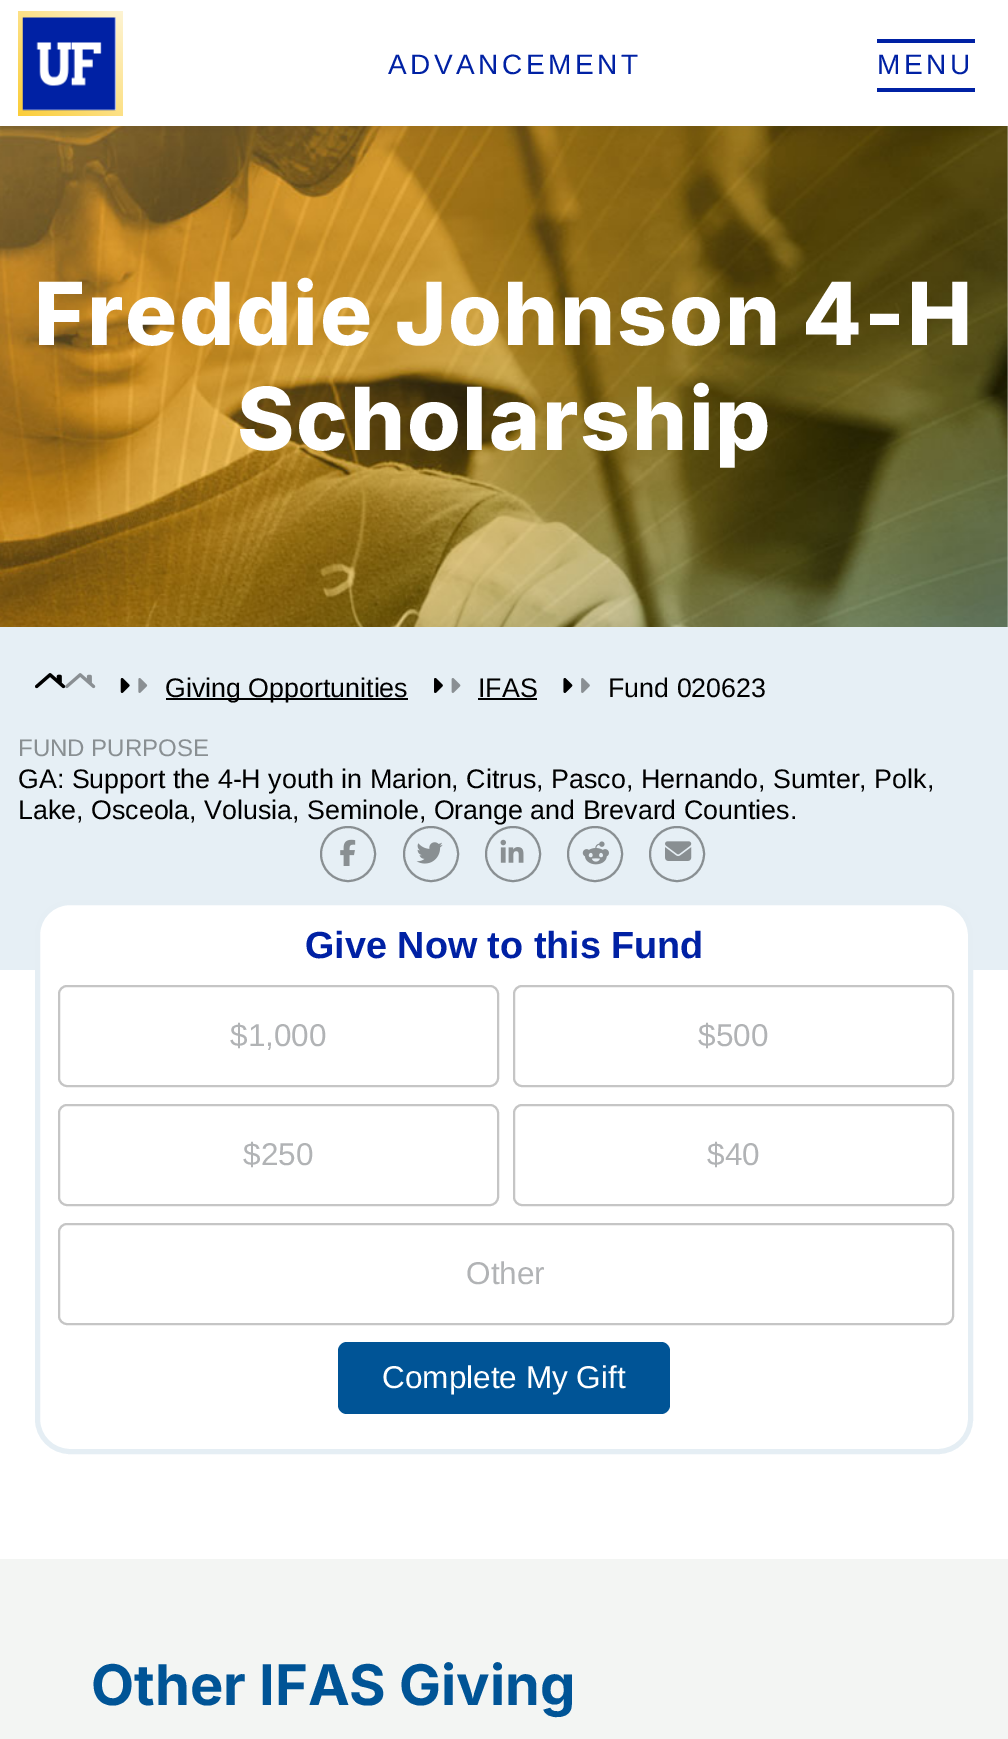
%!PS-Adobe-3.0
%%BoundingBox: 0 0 1008 1739
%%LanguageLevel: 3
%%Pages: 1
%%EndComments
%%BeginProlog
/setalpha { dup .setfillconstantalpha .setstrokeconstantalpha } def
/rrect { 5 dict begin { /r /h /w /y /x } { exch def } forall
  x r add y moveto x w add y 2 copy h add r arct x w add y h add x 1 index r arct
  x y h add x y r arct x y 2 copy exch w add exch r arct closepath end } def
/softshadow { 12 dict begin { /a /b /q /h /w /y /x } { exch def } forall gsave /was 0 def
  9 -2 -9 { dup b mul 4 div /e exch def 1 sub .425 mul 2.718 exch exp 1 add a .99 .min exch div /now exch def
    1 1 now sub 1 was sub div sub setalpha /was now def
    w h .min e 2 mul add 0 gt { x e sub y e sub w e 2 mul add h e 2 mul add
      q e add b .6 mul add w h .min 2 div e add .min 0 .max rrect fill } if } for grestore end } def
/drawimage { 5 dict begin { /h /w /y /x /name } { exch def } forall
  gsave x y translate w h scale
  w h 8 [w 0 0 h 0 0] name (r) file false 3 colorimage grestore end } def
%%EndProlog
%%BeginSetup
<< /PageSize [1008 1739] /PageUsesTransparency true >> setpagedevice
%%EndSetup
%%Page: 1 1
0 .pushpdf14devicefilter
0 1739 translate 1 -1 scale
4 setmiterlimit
1 setgray
0 0 1008 1739 rectfill
(images/2.raw) 0 126 1008 501 drawimage
0 setgray
0 0 1008 126 0 6 0.08 softshadow
1 setgray
0 0 1008 126 rectfill
gsave newpath 18 11 moveto 123 11 lineto 123 116 lineto 18 116 lineto closepath clip newpath
<< /ShadingType 2 /ColorSpace /DeviceRGB /Coords [18 116 123 10] /Extend [true true] /Function << /FunctionType 2 /Domain [0 1] /C0 [0.984 0.804 0.22] /C1 [0.996 0.957 0.835] /N 1 >> >> shfill grestore
23 18 93 92 rectfill
(images/1.raw) 22 17 94 94 drawimage
0 0.129 0.643 setrgbcolor
877 39 98 4 rectfill
877 88 98 4 rectfill
0.902 0.937 0.961 setrgbcolor
0 627 1008 343 rectfill
(images/3.raw) 35 673 31 16 drawimage
(images/4.raw) 35 673 61 16 drawimage
(images/5.raw) 120 678 10 15 drawimage
(images/6.raw) 120 678 28 15 drawimage
0 setgray
166 698 242 2 rectfill
(images/7.raw) 434 678 9 15 drawimage
(images/8.raw) 434 678 27 15 drawimage
478 698 59 2 rectfill
(images/9.raw) 563 678 10 15 drawimage
(images/10.raw) 563 678 27 15 drawimage
0.537 0.561 0.573 setrgbcolor
2 setlinewidth
newpath 348 854 27 0 360 arc closepath stroke
(images/11.raw) 340 839 16 27 drawimage
newpath 431 854 27 0 360 arc closepath stroke
(images/12.raw) 416 842 27 22 drawimage
newpath 513 854 27 0 360 arc closepath stroke
(images/13.raw) 500 839 24 24 drawimage
newpath 595 854 27 0 360 arc closepath stroke
(images/14.raw) 582 841 27 24 drawimage
newpath 677 854 27 0 360 arc closepath stroke
(images/15.raw) 665 841 27 20 drawimage
1 setgray
37.5 902.5 933 549 32.5 rrect gsave fill grestore
0.898 0.933 0.957 setrgbcolor
5 setlinewidth
stroke
0.773 setgray
2 setlinewidth
59 986 439 100 8 rrect stroke
514 986 439 100 8 rrect stroke
59 1105 439 100 8 rrect stroke
514 1105 439 100 8 rrect stroke
59 1224 894 100 8 rrect stroke
0 0.329 0.588 setrgbcolor
338 1342 332 72 9 rrect fill
0.953 0.961 0.953 setrgbcolor
0 1559 1008 180 rectfill
/LiberationSans-Regular [28 0 0 -28 0 0] selectfont
0 0.129 0.643 setrgbcolor
388 74 moveto 3.5 0 (ADVANCEMENT) ashow
877 74 moveto 3.5 0 (MENU) ashow
/Inter-ExtraBold [87 0 0 -87 0 0] selectfont
1 setgray
34 345 moveto 1.75 0 (Freddie Johnson 4-H) ashow
237 450 moveto 1.75 0 (Scholarship) ashow
/LiberationSans-Regular [26.8 0 0 -26.8 0 0] selectfont
0 setgray
165 697 moveto (Giving Opportunities) show
478 697 moveto (IFAS) show
608 697 moveto (Fund 020623) show
/LiberationSans-Regular [24 0 0 -24 0 0] selectfont
0.537 0.561 0.573 setrgbcolor
18 756 moveto (FUND PURPOSE) show
/LiberationSans-Regular [26.8 0 0 -26.8 0 0] selectfont
0 setgray
18 788 moveto (GA: Support the 4-H youth in Marion, Citrus, Pasco, Hernando, Sumter, Polk,) show
18 819 moveto (Lake, Osceola, Volusia, Seminole, Orange and Brevard Counties.) show
/LiberationSans-Bold [37.75 0 0 -37.75 0 0] selectfont
0 0.129 0.643 setrgbcolor
305 958 moveto (Give Now to this Fund) show
/LiberationSans-Regular [31.5 0 0 -31.5 0 0] selectfont
0.694 0.702 0.71 setrgbcolor
230 1046 moveto ($1,000) show
698 1046 moveto ($500) show
243 1165 moveto ($250) show
707 1165 moveto ($40) show
466 1284 moveto (Other) show
1 setgray
382 1388 moveto (Complete My Gift) show
/Inter-Bold [56 0 0 -56 0 0] selectfont
0 0.329 0.588 setrgbcolor
91 1705 moveto (Other IFAS Giving) show
.poppdf14devicefilter showpage
%%EOF
